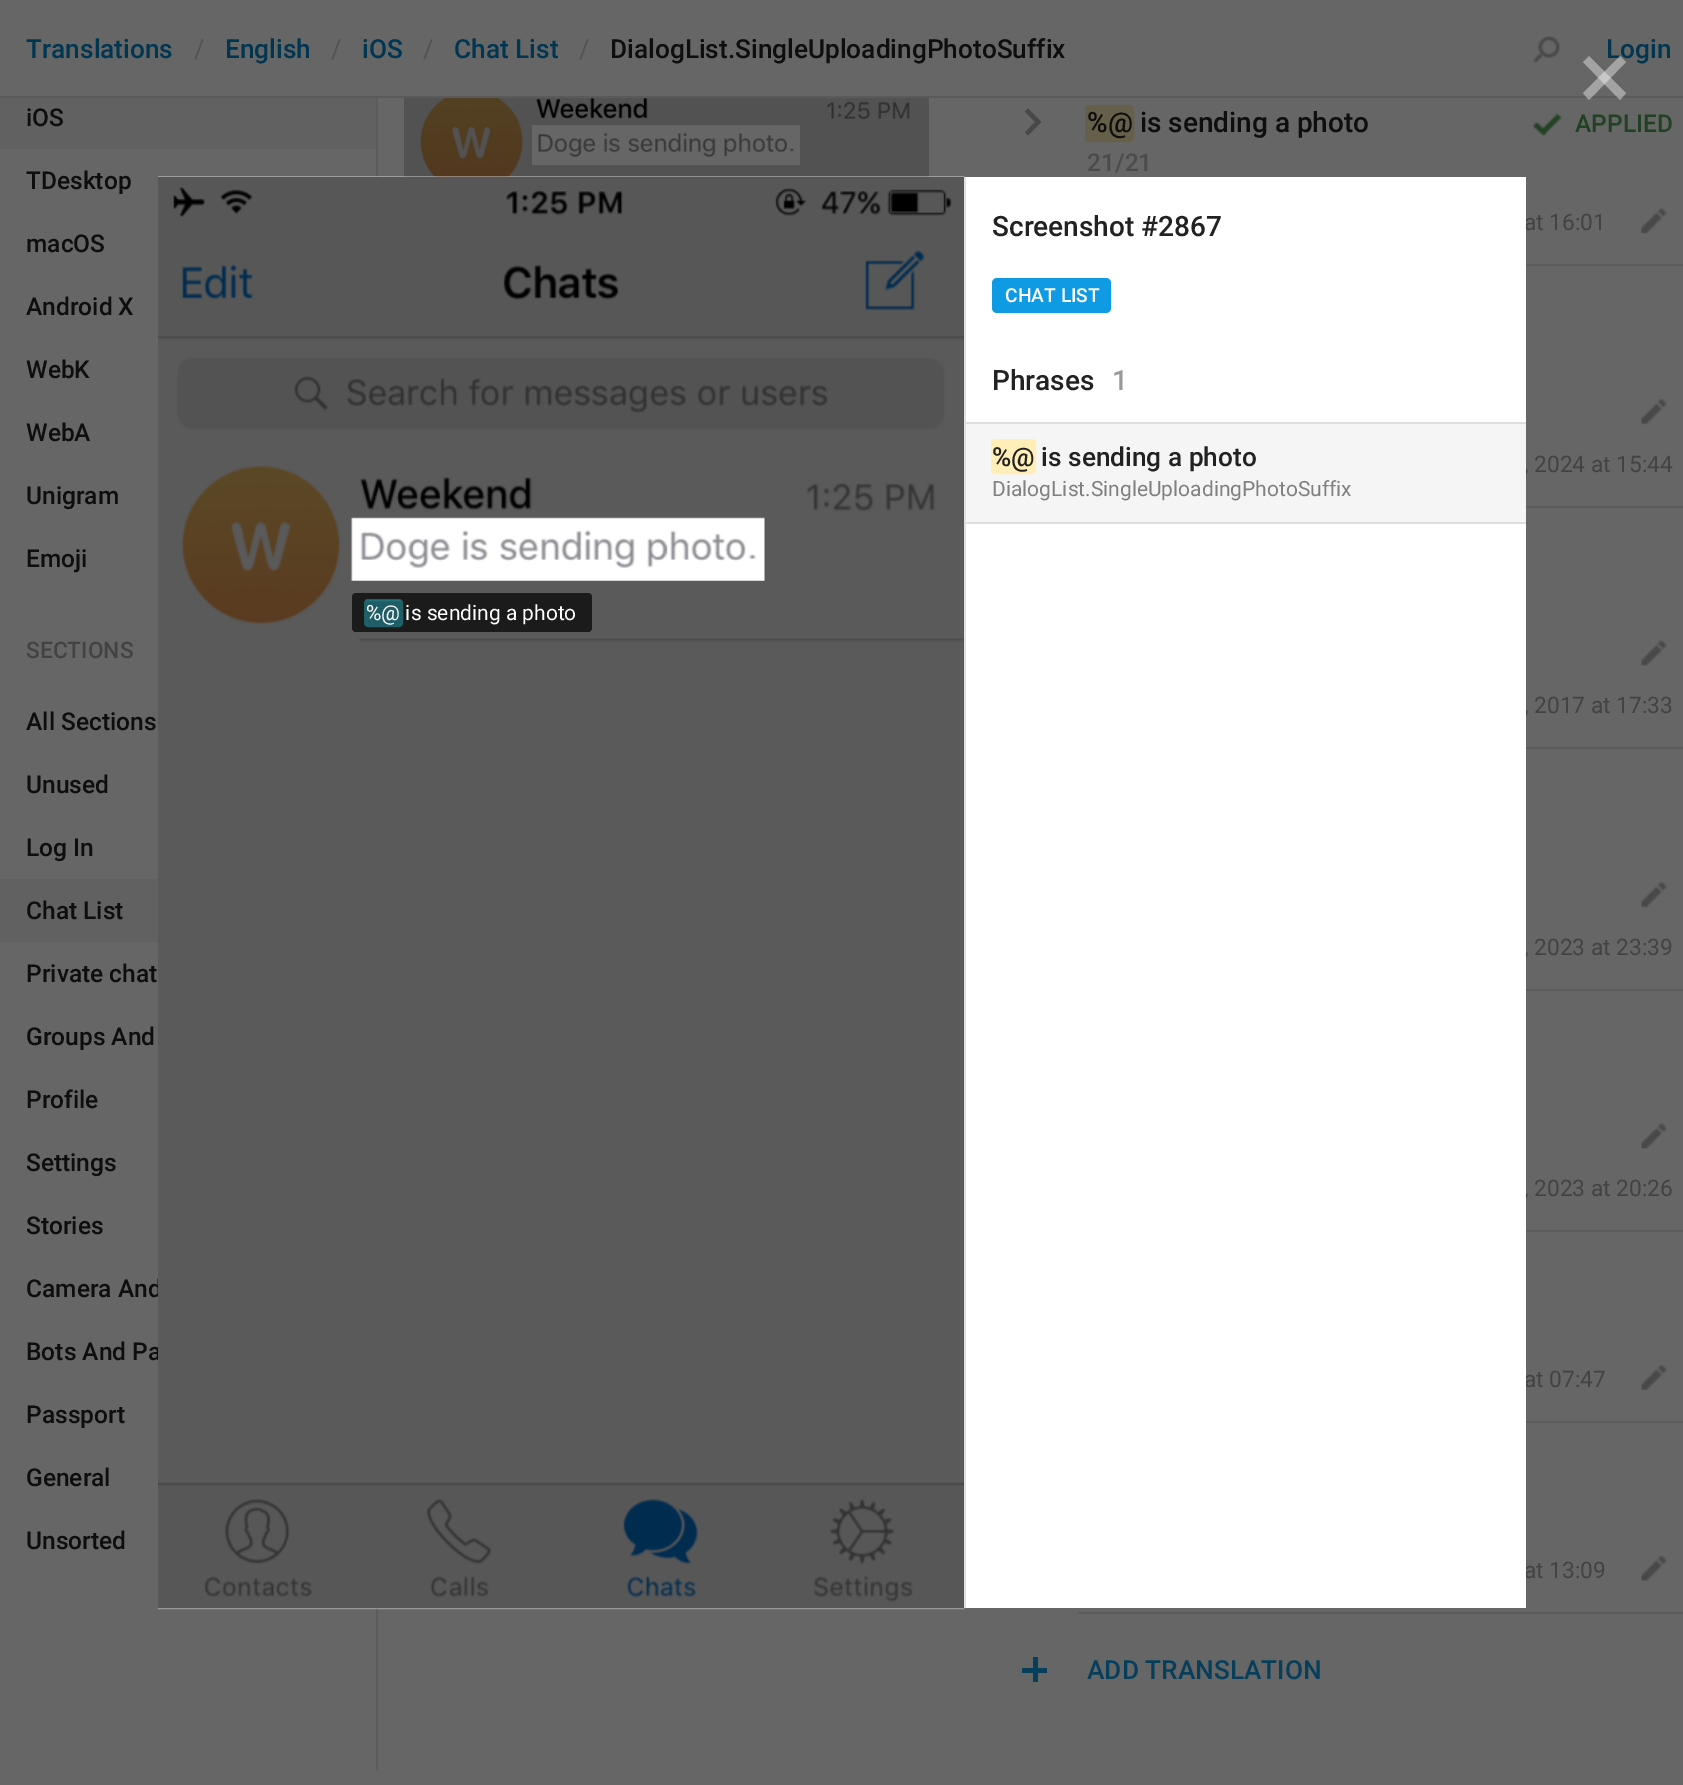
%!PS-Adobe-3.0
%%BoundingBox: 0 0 1683 1785
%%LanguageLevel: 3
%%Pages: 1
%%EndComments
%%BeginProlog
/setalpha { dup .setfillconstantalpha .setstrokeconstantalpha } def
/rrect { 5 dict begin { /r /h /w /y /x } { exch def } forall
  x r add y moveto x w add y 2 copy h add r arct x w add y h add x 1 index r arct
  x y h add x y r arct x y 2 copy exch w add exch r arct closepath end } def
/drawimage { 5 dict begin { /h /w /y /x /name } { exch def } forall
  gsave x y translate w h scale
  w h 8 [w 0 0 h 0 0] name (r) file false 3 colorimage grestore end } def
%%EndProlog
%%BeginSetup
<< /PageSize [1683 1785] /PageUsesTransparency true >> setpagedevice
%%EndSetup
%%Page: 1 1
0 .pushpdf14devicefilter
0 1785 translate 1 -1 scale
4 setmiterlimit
0.4 setgray
0 0 1683 1785 rectfill
0.353 setgray
0 96 1683 2 rectfill
(images/1.raw) 1532 36 28 27 drawimage
0.38 setgray
0 98 376 51 rectfill
0 879 158 63 rectfill
0.361 setgray
376 98 2 1673 rectfill
(images/2.raw) 404 98 526 80 drawimage
(images/3.raw) 532 125 268 40 drawimage
newpath 1078 264 moveto 1078 266 lineto 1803 266 lineto 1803 77 lineto 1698 77 lineto 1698 264 lineto closepath fill
0.282 setgray
newpath 1035 122 moveto 1025 111.5 lineto 1028 108.5 lineto 1041.5 122 lineto 1028 135.5 lineto 1025 132.5 lineto closepath fill
0.4 0.373 0.29 setrgbcolor
2 setlinewidth
1086 106 47 35 3 rrect stroke
1087 107 45 33 2 rrect fill
(images/4.raw) 1641 208 26 26 drawimage
(images/5.raw) 1533 113 29 24 drawimage
0.361 setgray
newpath 1078 506 moveto 1078 508 lineto 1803 508 lineto 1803 268 lineto 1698 268 lineto 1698 506 lineto closepath fill
(images/6.raw) 1641 398 26 27 drawimage
newpath 1078 747 moveto 1078 749 lineto 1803 749 lineto 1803 509 lineto 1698 509 lineto 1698 747 lineto closepath fill
(images/7.raw) 1641 640 26 26 drawimage
newpath 1078 989 moveto 1078 991 lineto 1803 991 lineto 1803 751 lineto 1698 751 lineto 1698 989 lineto closepath fill
(images/6.raw) 1641 881 26 27 drawimage
newpath 1078 1230 moveto 1078 1232 lineto 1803 1232 lineto 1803 992 lineto 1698 992 lineto 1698 1230 lineto closepath fill
(images/7.raw) 1641 1123 26 26 drawimage
newpath 1078 1421 moveto 1078 1423 lineto 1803 1423 lineto 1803 1234 lineto 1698 1234 lineto 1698 1421 lineto closepath fill
(images/6.raw) 1641 1364 26 27 drawimage
newpath 1078 1612 moveto 1078 1614 lineto 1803 1614 lineto 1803 1425 lineto 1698 1425 lineto 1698 1612 lineto closepath fill
(images/8.raw) 1641 1555 26 26 drawimage
0.024 0.243 0.357 setrgbcolor
1022 1668 25 5 rectfill
1033 1657 5 25 rectfill
/Roboto-Medium [26.25 0 0 -26.25 0 0] selectfont
0 0.212 0.322 setrgbcolor
26 58 moveto (Translations) show
0.333 setgray
194 58 moveto (/) show
0 0.212 0.322 setrgbcolor
225 58 moveto (English) show
0.333 setgray
331 58 moveto (/) show
0 0.212 0.322 setrgbcolor
362 58 moveto (iOS) show
0.333 setgray
423 58 moveto (/) show
0 0.212 0.322 setrgbcolor
454 58 moveto (Chat List) show
0.333 setgray
579 58 moveto (/) show
0.055 setgray
610 58 moveto (DialogList.SingleUploadingPhotoSuffix) show
0 0.212 0.322 setrgbcolor
1606 58 moveto (Login) show
/Roboto-Medium [24.5 0 0 -24.5 0 0] selectfont
0.055 setgray
26 126 moveto (iOS) show
26 189 moveto (TDesktop) show
26 252 moveto (macOS) show
26 315 moveto (Android X) show
26 378 moveto (WebK) show
26 441 moveto (WebA) show
26 504 moveto (Unigram) show
26 567 moveto (Emoji) show
/Roboto-Medium [22.75 0 0 -22.75 0 0] selectfont
0.263 setgray
26 658 moveto (SECTIONS) show
/Roboto-Medium [24.5 0 0 -24.5 0 0] selectfont
0.055 setgray
26 730 moveto (All Sections) show
26 793 moveto (Unused) show
26 856 moveto (Log In) show
26 919 moveto (Chat List) show
26 982 moveto (Private chat) show
26 1045 moveto (Groups And) show
26 1108 moveto (Profile) show
26 1171 moveto (Settings) show
26 1234 moveto (Stories) show
26 1297 moveto (Camera And) show
26 1360 moveto (Bots And Pa) show
26 1423 moveto (Passport) show
26 1486 moveto (General) show
26 1549 moveto (Unsorted) show
/Roboto-Medium [28 0 0 -28 0 0] selectfont
1087 132 moveto (%@ is sending a photo) show
/Roboto-Medium [24.5 0 0 -24.5 0 0] selectfont
0.294 setgray
1087 171 moveto (21/21) show
/Roboto-Regular [22.75 0 0 -22.75 0 0] selectfont
0.263 setgray
1524 230 moveto (at 16:01) show
/Roboto-Medium [24.5 0 0 -24.5 0 0] selectfont
0.125 0.259 0.137 setrgbcolor
1575 132 moveto (APPLIED) show
/Roboto-Regular [22.75 0 0 -22.75 0 0] selectfont
0.263 setgray
1524 472 moveto (, 2024 at 15:44) show
1524 713 moveto (, 2017 at 17:33) show
1524 955 moveto (, 2023 at 23:39) show
1524 1196 moveto (, 2023 at 20:26) show
1524 1387 moveto (at 07:47) show
1524 1578 moveto (at 13:09) show
/Roboto-Medium [26.25 0 0 -26.25 0 0] selectfont
0.024 0.243 0.357 setrgbcolor
1087 1679 moveto (ADD TRANSLATION) show
0.4 setalpha
1 setgray
newpath 1589 56 moveto 1626 93 lineto 1620 100 lineto 1583 62 lineto closepath fill
newpath 1583 93 moveto 1620 56 lineto 1626 62 lineto 1589 100 lineto closepath fill
1 setalpha
(images/9.raw) 158 176 808 1434 drawimage
966 177 560 1431 rectfill
0.878 setgray
964 177 2 1431 rectfill
/Roboto-Medium [28 0 0 -28 0 0] selectfont
0.133 setgray
992 236 moveto (Screenshot #2867) show
0.059 0.604 0.894 setrgbcolor
992 278 119 35 5 rrect fill
/Roboto-Medium [19.25 0 0 -19.25 0 0] selectfont
1 setgray
1005 302 moveto (CHAT LIST) show
/Roboto-Medium [28 0 0 -28 0 0] selectfont
0.133 setgray
992 390 moveto (Phrases) show
0.6 setgray
1112 390 moveto (1) show
0.961 setgray
966 424 560 98 rectfill
0.871 setgray
966 422 560 2 rectfill
966 522 560 2 rectfill
1 0.933 0.722 setrgbcolor
992 440 43 33 3 rrect stroke
992 441 42 32 2 rrect fill
/Roboto-Medium [26.25 0 0 -26.25 0 0] selectfont
0.133 setgray
992 466 moveto (%@ is sending a photo) show
/Roboto-Regular [21 0 0 -21 0 0] selectfont
0.502 setgray
992 496 moveto (DialogList.SingleUploadingPhotoSuffix) show
0.2 setalpha
0 setgray
158 177 806 1431 rectfill
0.56 setalpha
158 177 806 1431 rectfill
1 setalpha
(images/10.raw) 351 517 414 64 drawimage
0.106 setgray
352 593 240 39 4 rrect fill
0.122 0.369 0.4 setrgbcolor
365 600 37 26 3 rrect stroke
0.7 setalpha
0.129 0.482 0.525 setrgbcolor
366 600 35 25 2 rrect fill
1 setalpha
1 setgray
366 620 moveto (%@ is sending a photo) show
.poppdf14devicefilter showpage
%%EOF
